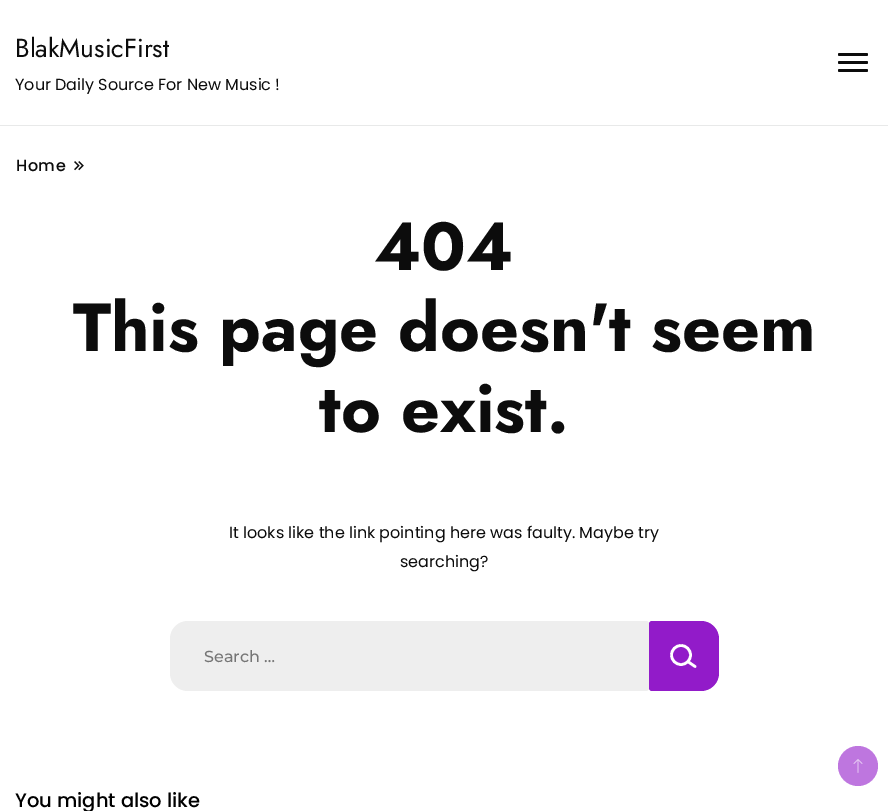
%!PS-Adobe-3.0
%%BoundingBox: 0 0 888 811
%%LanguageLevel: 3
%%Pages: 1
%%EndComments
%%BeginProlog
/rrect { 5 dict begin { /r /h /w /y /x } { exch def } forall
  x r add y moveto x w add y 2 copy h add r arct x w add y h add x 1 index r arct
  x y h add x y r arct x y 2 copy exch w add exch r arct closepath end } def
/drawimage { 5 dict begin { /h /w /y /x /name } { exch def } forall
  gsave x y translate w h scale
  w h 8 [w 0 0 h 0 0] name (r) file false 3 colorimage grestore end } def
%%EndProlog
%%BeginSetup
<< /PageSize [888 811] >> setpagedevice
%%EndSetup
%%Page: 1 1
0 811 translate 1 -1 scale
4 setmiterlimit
1 setgray
0 0 888 811 rectfill
0.91 0.914 0.914 setrgbcolor
0 125 888 1 rectfill
0.047 setgray
838 53 30 3 1.5 rrect fill
838 61 30 3 1.5 rrect fill
838 69 30 3 1.5 rrect fill
(images/1.raw) 74 161 10 10 drawimage
0.933 setgray
newpath 188 621 moveto 646 621 lineto 647.5 621 649 622.5 649 624 curveto 649 688 lineto 649 689.5 647.5 691 646 691 curveto 188 691 lineto 178 691 170 683 170 673 curveto 170 639 lineto 170 629 178 621 188 621 curveto closepath fill
0.573 0.106 0.788 setrgbcolor
newpath 652 621 moveto 701 621 lineto 711 621 719 629 719 639 curveto 719 673 lineto 719 683 711 691 701 691 curveto 652 691 lineto 650.5 691 649 689.5 649 688 curveto 649 624 lineto 649 622.5 650.5 621 652 621 curveto closepath fill
1 setgray
2.6 setlinewidth
newpath 681 655 9.5 0 360 arc closepath stroke
1 setlinecap
1 setlinejoin
newpath 688.5 662 moveto 695 666.5 lineto stroke
0.745 0.463 0.875 setrgbcolor
newpath 858 766 20 0 360 arc closepath fill
(images/2.raw) 853 759 10 14 drawimage
/Jost-Regular [26 0 0 -26 0 0] selectfont
0.047 setgray
15 57 moveto (BlakMusicFirst) show
/Poppins-Regular [16 0 0 -16 0 0] selectfont
15 90 moveto (Your Daily Source For New Music !) show
/Poppins-Medium [16 0 0 -16 0 0] selectfont
16 171 moveto 0.5 0 (Home) ashow
/Jost-Bold [67.75 0 0 -67.75 0 0] selectfont
374 270 moveto (404) show
73 351 moveto (This page doesn't seem) show
319 432 moveto (to exist.) show
/Poppins-Regular [16 0 0 -16 0 0] selectfont
229 538 moveto (It looks like the link pointing here was faulty. Maybe try) show
400 567 moveto (searching?) show
/Montserrat-Medium [16 0 0 -16 0 0] selectfont
0.459 setgray
204 662 moveto (Search …) show
/Poppins-Medium [19.5 0 0 -19.5 0 0] selectfont
0 setgray
15 807 moveto (You might also like) show
showpage
%%EOF
